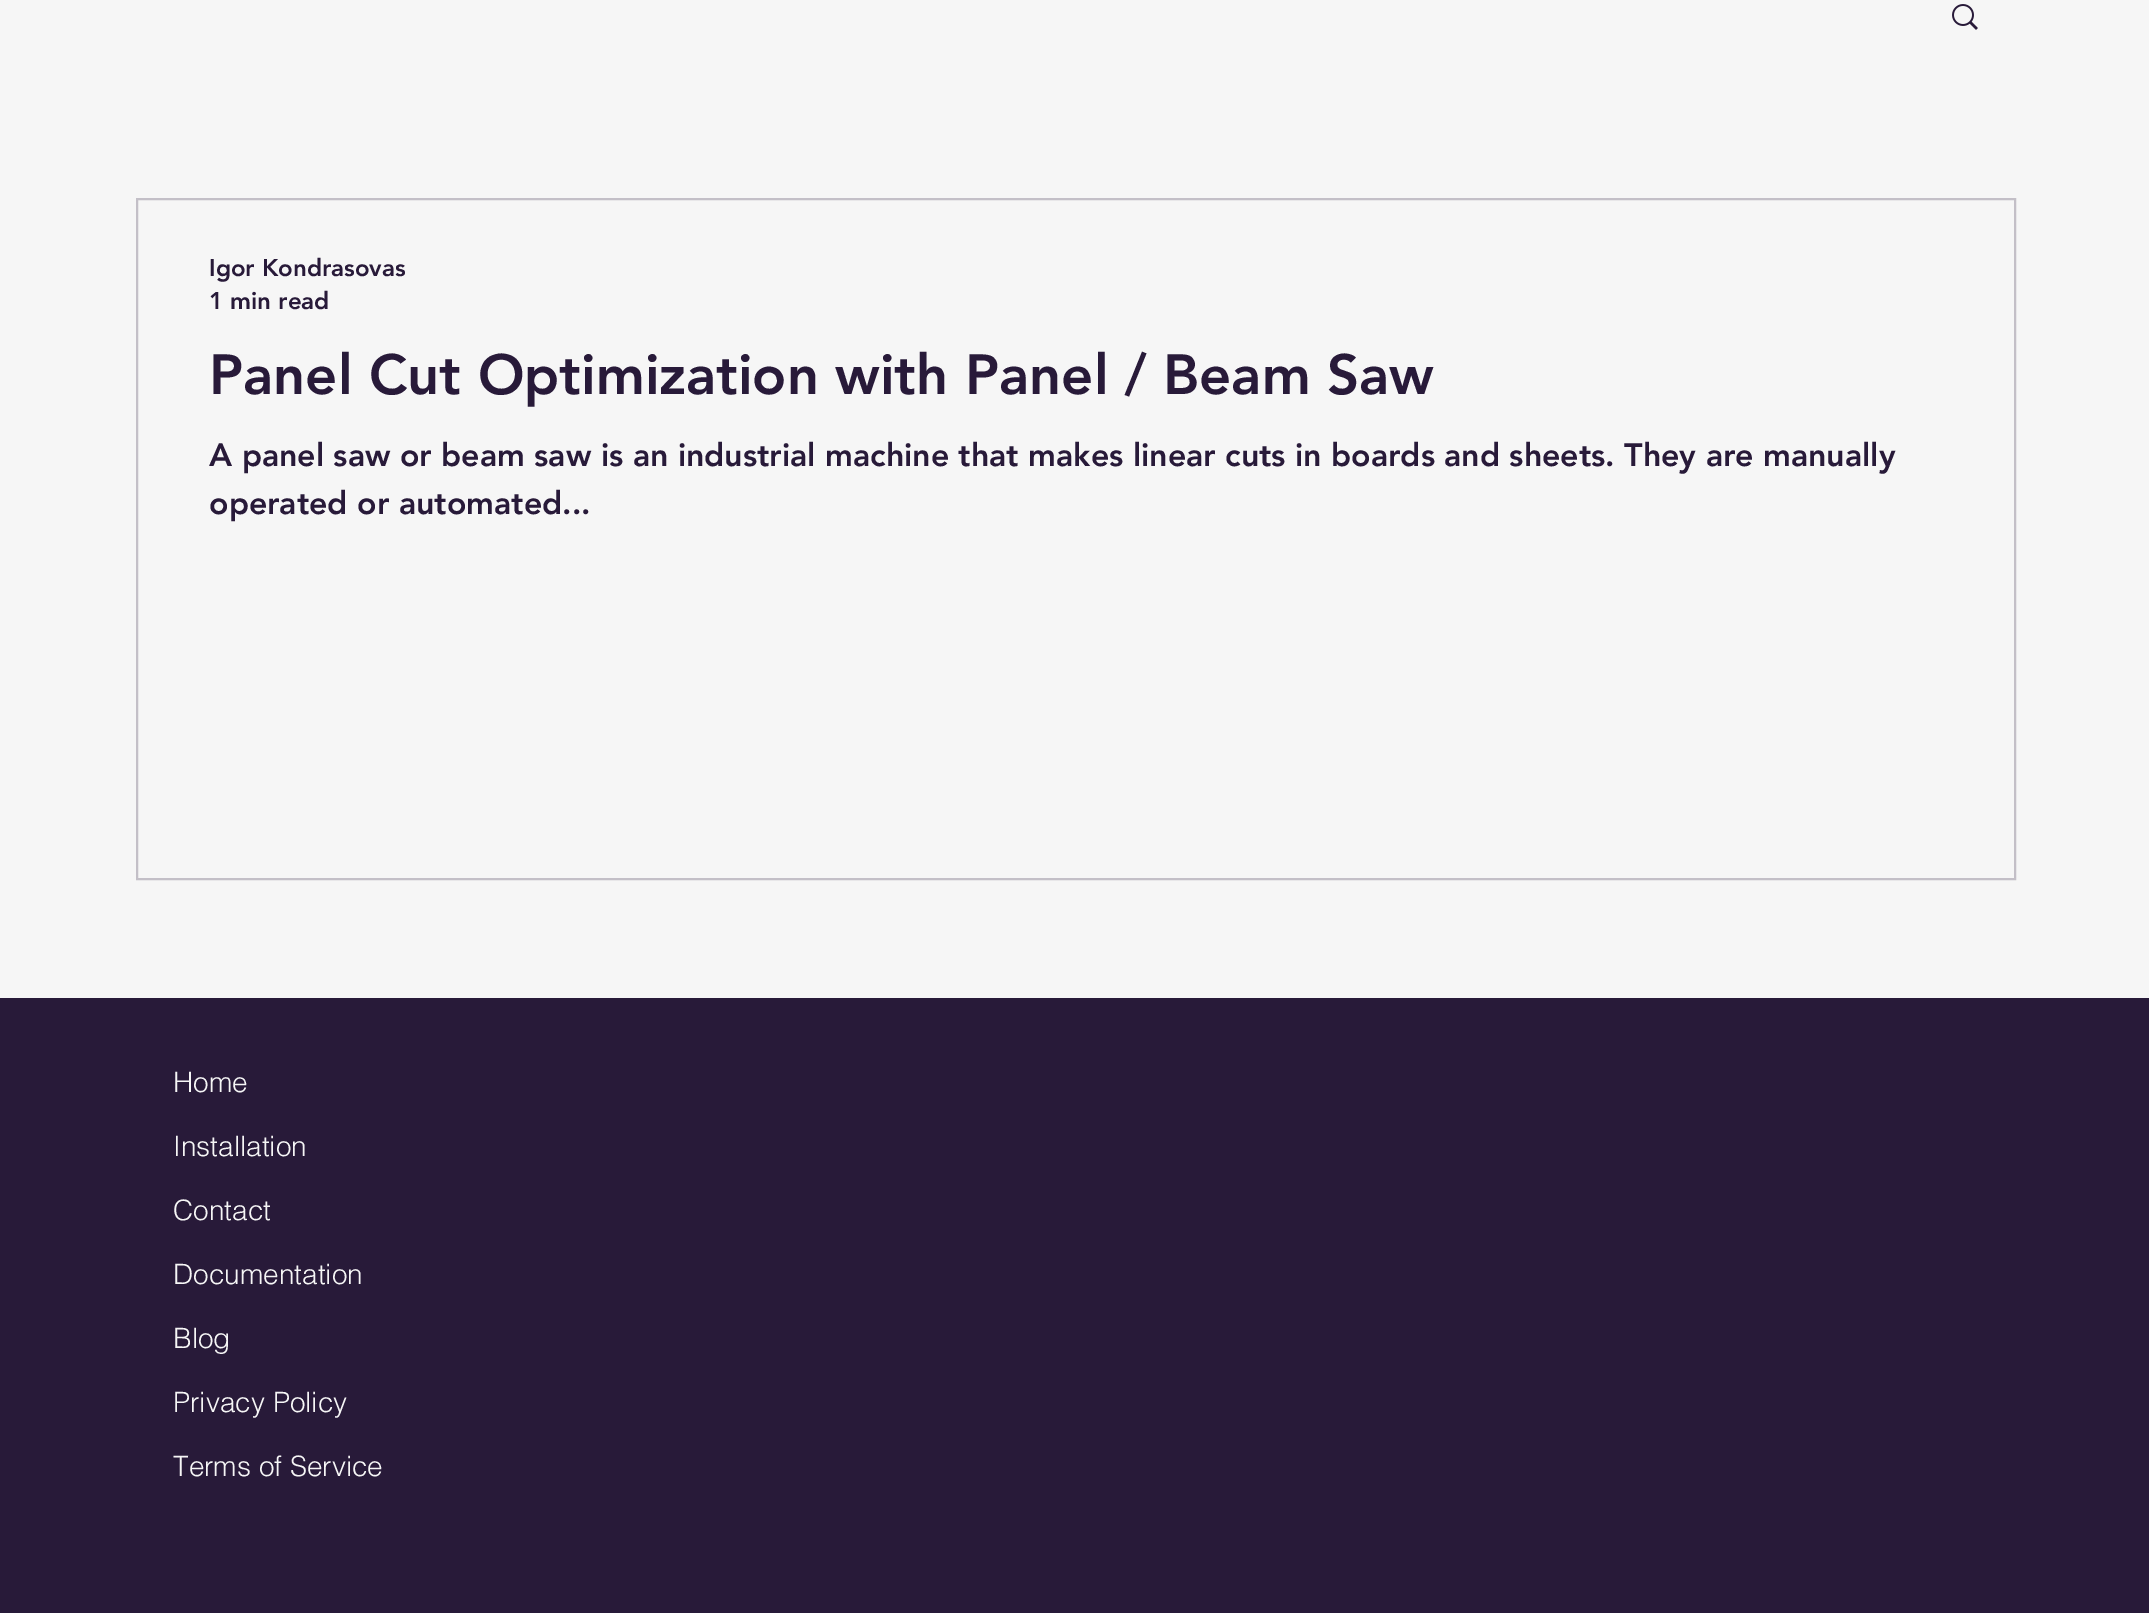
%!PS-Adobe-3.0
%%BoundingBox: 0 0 2149 1613
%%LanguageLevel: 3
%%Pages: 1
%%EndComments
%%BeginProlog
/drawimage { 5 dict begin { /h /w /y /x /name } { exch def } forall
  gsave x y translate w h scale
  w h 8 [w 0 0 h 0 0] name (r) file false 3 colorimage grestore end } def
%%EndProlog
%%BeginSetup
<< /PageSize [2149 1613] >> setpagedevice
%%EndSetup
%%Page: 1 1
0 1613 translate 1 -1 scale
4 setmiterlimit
0.965 setgray
0 0 2149 1613 rectfill
(images/1.raw) 1952 4 26 26 drawimage
0.765 0.749 0.78 setrgbcolor
2 setlinewidth
137 199 1878 680 rectstroke
0.157 0.102 0.224 setrgbcolor
0 998 2149 615 rectfill
/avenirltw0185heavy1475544-Black [24 0 0 -24 0 0] selectfont
209 276 moveto (Igor Kondrasovas) show
209 309 moveto (1 min read) show
/avenirltw0185heavy1475544-Black [56 0 0 -56 0 0] selectfont
209 394 moveto (Panel Cut Optimization with Panel / Beam Saw) show
/avenirltw0185heavy1475544-Black [32 0 0 -32 0 0] selectfont
209 466 moveto (A panel saw or beam saw is an industrial machine that makes linear cuts in boards and sheets. They are manually) show
209 514 moveto (operated or automated...) show
/helvetica-Light [28 0 0 -28 0 0] selectfont
0.965 setgray
173 1092 moveto (Home) show
173 1156 moveto (Installation) show
173 1220 moveto (Contact) show
173 1284 moveto (Documentation) show
173 1348 moveto (Blog) show
173 1412 moveto (Privacy Policy) show
173 1476 moveto (Terms of Service) show
showpage
%%EOF
